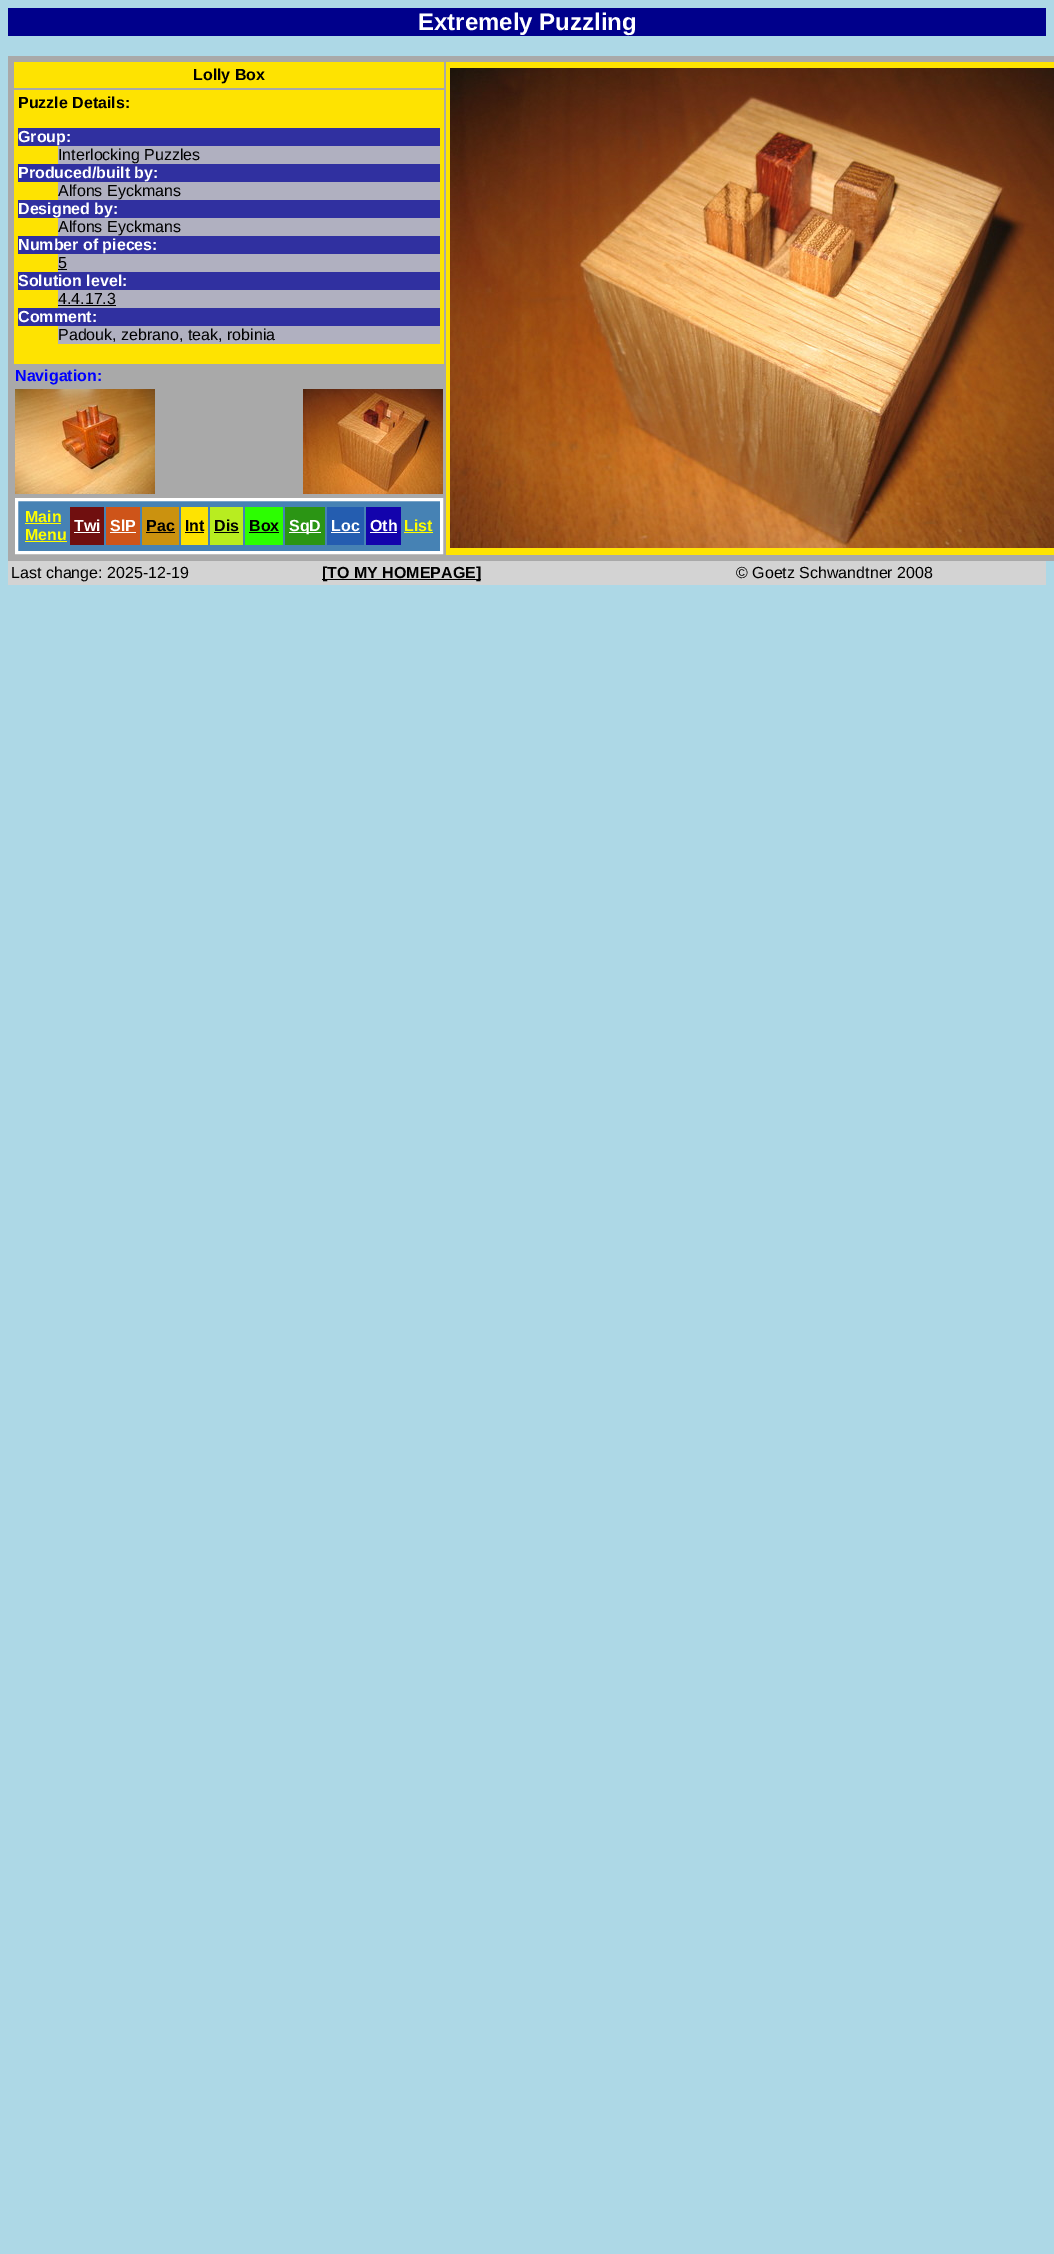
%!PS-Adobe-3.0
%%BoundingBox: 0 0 1054 2254
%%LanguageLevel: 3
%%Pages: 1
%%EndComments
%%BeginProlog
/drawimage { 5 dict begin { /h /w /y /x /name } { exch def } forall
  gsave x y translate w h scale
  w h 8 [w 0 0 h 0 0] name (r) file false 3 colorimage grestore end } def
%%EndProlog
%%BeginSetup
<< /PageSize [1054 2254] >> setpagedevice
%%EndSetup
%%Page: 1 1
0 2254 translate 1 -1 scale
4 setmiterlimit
0.678 0.847 0.902 setrgbcolor
0 0 1054 2254 rectfill
0 0 0.545 setrgbcolor
8 8 1038 28 rectfill
0.663 setgray
8 56 1046 505 rectfill
0.996 0.89 0.004 setrgbcolor
14 62 430 26 rectfill
446 62 608 493 rectfill
(images/1.raw) 450 68 604 480 drawimage
14 90 430 274 rectfill
0.188 0.188 0.627 setrgbcolor
18 128 422 18 rectfill
0.69 0.69 0.753 setrgbcolor
58 146 382 18 rectfill
0.188 0.188 0.627 setrgbcolor
18 164 422 18 rectfill
0.69 0.69 0.753 setrgbcolor
58 182 382 18 rectfill
0.188 0.188 0.627 setrgbcolor
18 200 422 18 rectfill
0.69 0.69 0.753 setrgbcolor
58 218 382 18 rectfill
0.188 0.188 0.627 setrgbcolor
18 236 422 18 rectfill
0.69 0.69 0.753 setrgbcolor
58 254 382 18 rectfill
0 setgray
58 269 9 1 rectfill
0.188 0.188 0.627 setrgbcolor
18 272 422 18 rectfill
0.69 0.69 0.753 setrgbcolor
58 290 382 18 rectfill
0 setgray
58 305 58 1 rectfill
0.188 0.188 0.627 setrgbcolor
18 308 422 18 rectfill
0.69 0.69 0.753 setrgbcolor
58 326 382 18 rectfill
(images/2.raw) 15 389 140 105 drawimage
(images/3.raw) 303 389 140 105 drawimage
0.275 0.51 0.706 setrgbcolor
newpath 16.5 499.5 moveto 441.5 499.5 lineto 441.5 552.5 lineto 16.5 552.5 lineto closepath gsave fill grestore
1 setgray
3 setlinewidth
stroke
1 1 0 setrgbcolor
25 523 36 1 rectfill
25 541 42 1 rectfill
0.439 0.059 0.059 setrgbcolor
70 507 34 38 rectfill
1 setgray
74 532 26 1 rectfill
0.808 0.329 0.098 setrgbcolor
106 507 34 38 rectfill
1 setgray
110 532 26 1 rectfill
0.796 0.573 0.059 setrgbcolor
142 507 37 38 rectfill
0 setgray
146 532 29 1 rectfill
0.996 0.89 0.004 setrgbcolor
181 507 27 38 rectfill
0 setgray
185 532 19 1 rectfill
0.722 0.929 0.125 setrgbcolor
210 507 33 38 rectfill
0 setgray
214 532 25 1 rectfill
0.173 0.996 0.004 setrgbcolor
245 507 38 38 rectfill
0 setgray
249 532 30 1 rectfill
0.169 0.584 0.078 setrgbcolor
285 507 40 38 rectfill
1 setgray
289 532 32 1 rectfill
0.141 0.365 0.69 setrgbcolor
327 507 37 38 rectfill
1 setgray
331 532 29 1 rectfill
0.075 0.012 0.675 setrgbcolor
366 507 35 38 rectfill
1 setgray
370 532 27 1 rectfill
1 1 0 setrgbcolor
404 532 29 1 rectfill
0.827 setgray
8 561 1038 24 rectfill
0 setgray
322 579 159 1 rectfill
/LiberationSans-Bold [24 0 0 -24 0 0] selectfont
1 setgray
418 30 moveto (Extremely Puzzling) show
/LiberationSans-Bold [16 0 0 -16 0 0] selectfont
0 setgray
193 80 moveto (Lolly Box) show
18 108 moveto (Puzzle Details:) show
1 setgray
18 142 moveto (Group:) show
/LiberationSans-Regular [16 0 0 -16 0 0] selectfont
0 setgray
58 160 moveto (Interlocking Puzzles) show
/LiberationSans-Bold [16 0 0 -16 0 0] selectfont
1 setgray
18 178 moveto (Produced/built by:) show
/LiberationSans-Regular [16 0 0 -16 0 0] selectfont
0 setgray
58 196 moveto (Alfons Eyckmans) show
/LiberationSans-Bold [16 0 0 -16 0 0] selectfont
1 setgray
18 214 moveto (Designed by:) show
/LiberationSans-Regular [16 0 0 -16 0 0] selectfont
0 setgray
58 232 moveto (Alfons Eyckmans) show
/LiberationSans-Bold [16 0 0 -16 0 0] selectfont
1 setgray
18 250 moveto (Number of pieces:) show
/LiberationSans-Regular [16 0 0 -16 0 0] selectfont
0 setgray
58 268 moveto (5) show
/LiberationSans-Bold [16 0 0 -16 0 0] selectfont
1 setgray
18 286 moveto (Solution level:) show
/LiberationSans-Regular [16 0 0 -16 0 0] selectfont
0 setgray
58 304 moveto (4.4.17.3) show
/LiberationSans-Bold [16 0 0 -16 0 0] selectfont
1 setgray
18 322 moveto (Comment:) show
/LiberationSans-Regular [16 0 0 -16 0 0] selectfont
0 setgray
58 340 moveto (Padouk, zebrano, teak, robinia) show
/LiberationSans-Bold [16 0 0 -16 0 0] selectfont
0 0 1 setrgbcolor
15 381 moveto (Navigation:) show
1 1 0 setrgbcolor
25 522 moveto (Main) show
25 540 moveto (Menu) show
1 setgray
74 531 moveto (Twi) show
110 531 moveto (SlP) show
0 setgray
146 531 moveto (Pac) show
185 531 moveto (Int) show
214 531 moveto (Dis) show
249 531 moveto (Box) show
1 setgray
289 531 moveto (SqD) show
331 531 moveto (Loc) show
370 531 moveto (Oth) show
1 1 0 setrgbcolor
404 531 moveto (List) show
/LiberationSans-Regular [16 0 0 -16 0 0] selectfont
0 setgray
11 578 moveto (Last change: 2025-12-19) show
/LiberationSans-Bold [16 0 0 -16 0 0] selectfont
322 578 moveto ([TO MY HOMEPAGE]) show
/LiberationSans-Regular [16 0 0 -16 0 0] selectfont
736 578 moveto (© Goetz Schwandtner 2008) show
showpage
%%EOF
